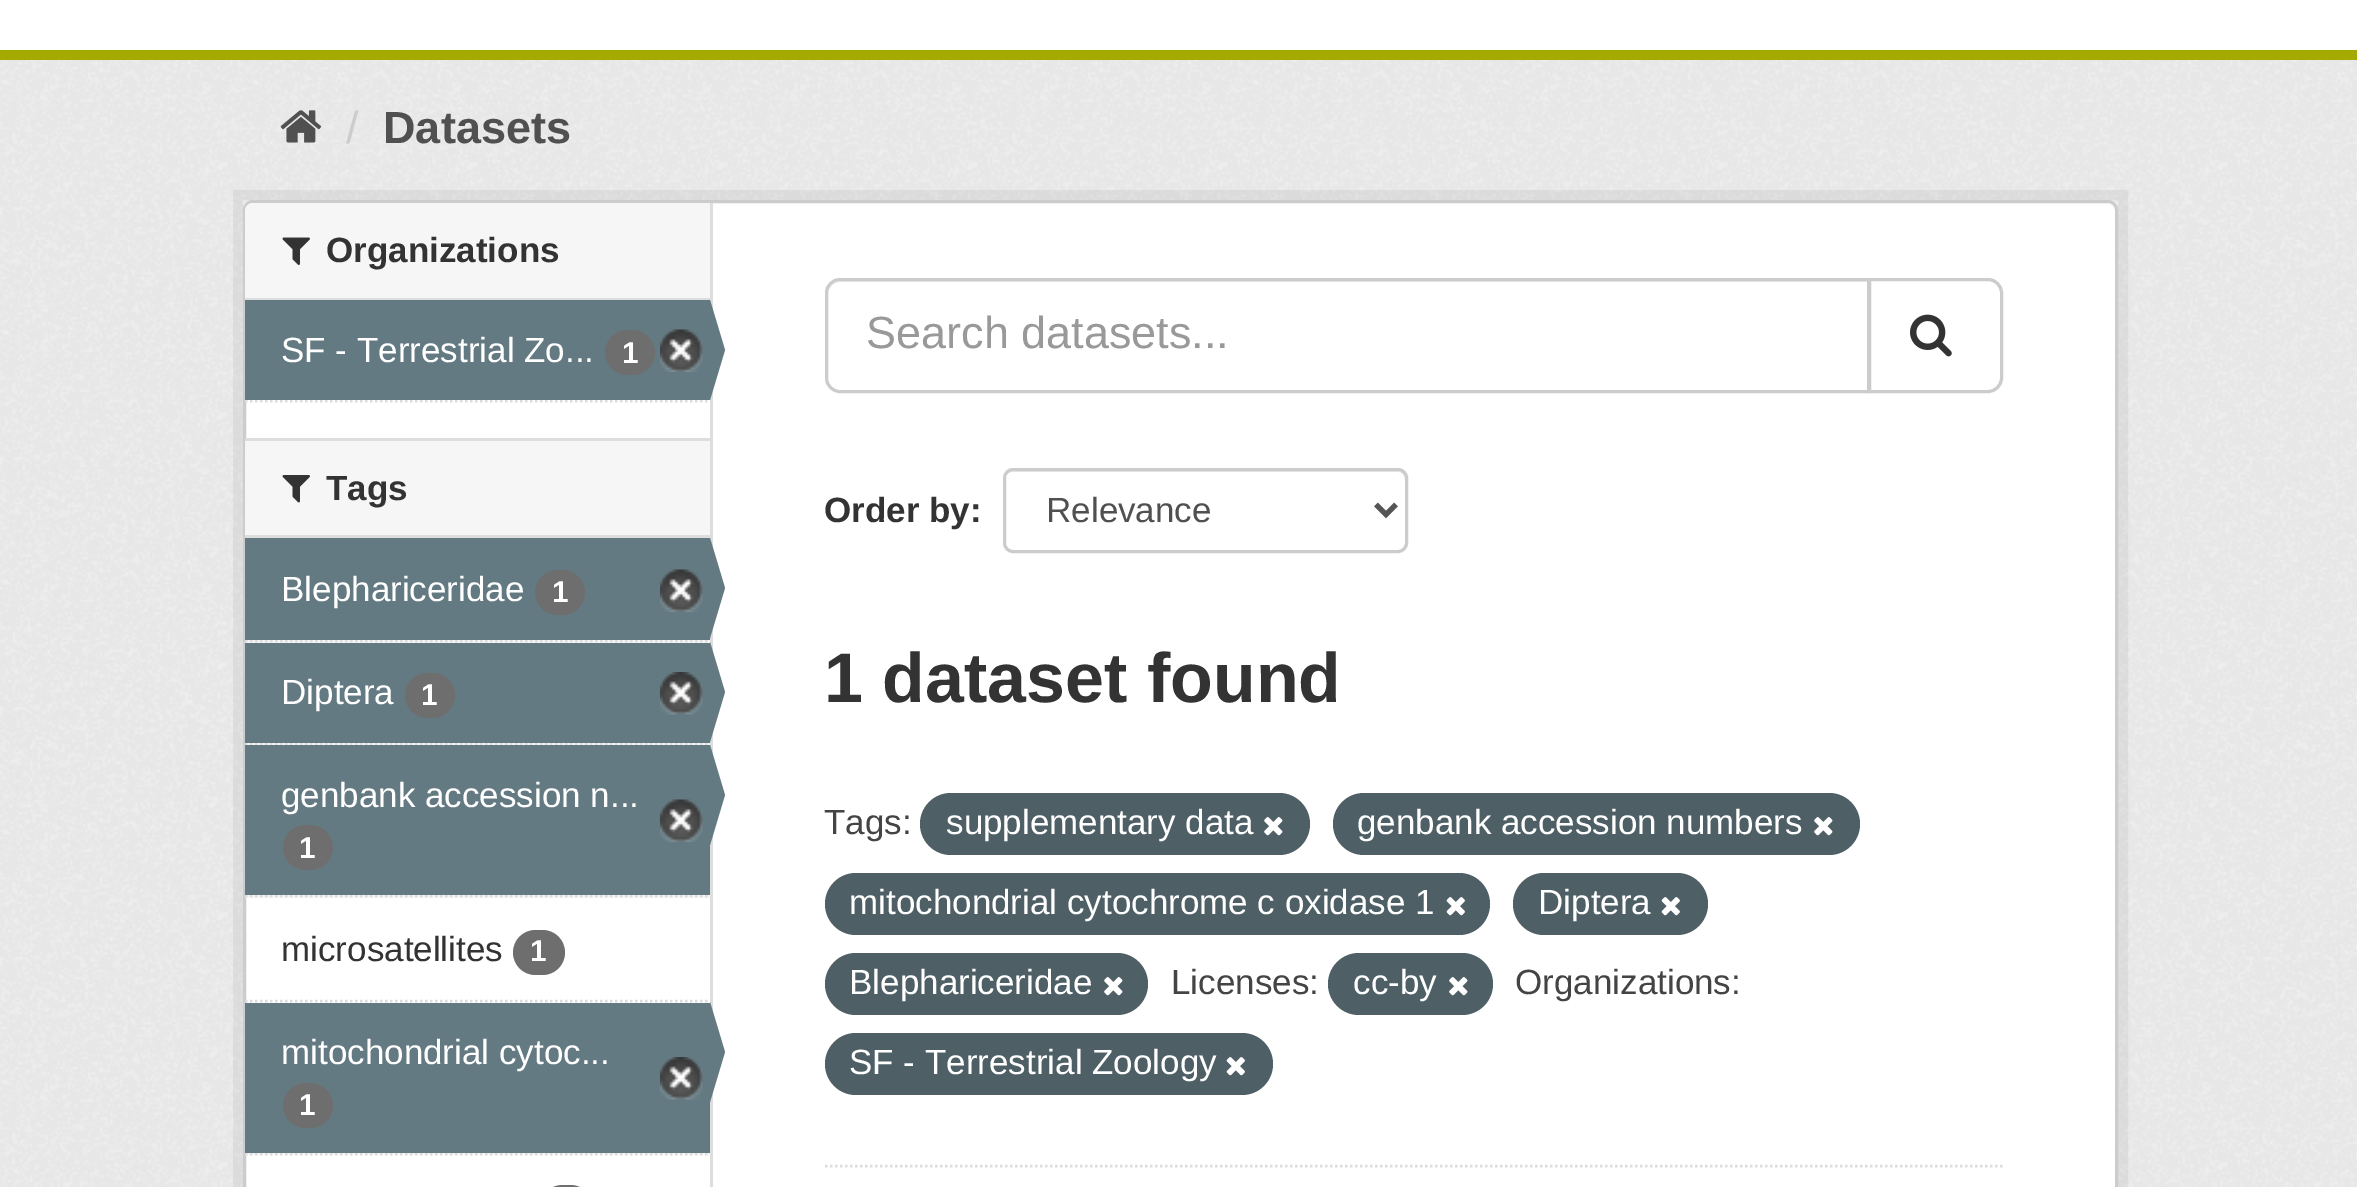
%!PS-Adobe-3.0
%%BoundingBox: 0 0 2357 1187
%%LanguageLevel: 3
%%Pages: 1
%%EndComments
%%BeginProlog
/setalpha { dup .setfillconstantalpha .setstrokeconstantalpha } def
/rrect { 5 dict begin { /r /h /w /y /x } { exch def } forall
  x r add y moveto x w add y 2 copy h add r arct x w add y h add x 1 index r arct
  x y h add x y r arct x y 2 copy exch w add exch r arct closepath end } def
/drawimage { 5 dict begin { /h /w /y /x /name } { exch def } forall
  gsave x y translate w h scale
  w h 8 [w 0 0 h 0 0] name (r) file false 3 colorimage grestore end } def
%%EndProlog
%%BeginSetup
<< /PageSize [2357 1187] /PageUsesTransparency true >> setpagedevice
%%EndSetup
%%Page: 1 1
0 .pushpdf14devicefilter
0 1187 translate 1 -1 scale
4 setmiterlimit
1 setgray
0 0 2357 1187 rectfill
0.643 0.667 0 setrgbcolor
0 50 2357 10 rectfill
0.933 setgray
0 60 2357 1127 rectfill
(images/1.raw) 0 60 2357 1127 drawimage
(images/2.raw) 280 110 42 33 drawimage
0.05 setalpha
0 setgray
10 setlinewidth
238 195 1885 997 rectstroke
1 setalpha
1 setgray
244.5 201.5 1872 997 8.5 rrect gsave fill grestore
0.8 setgray
3 setlinewidth
stroke
0.965 setgray
newpath 253 203 moveto 710 203 lineto 710 300 lineto 245 300 lineto 245 211 lineto 245 206.5 248.5 203 253 203 curveto closepath fill
0.867 setgray
245 298 465 2 rectfill
(images/3.raw) 282 237 28 28 drawimage
2.5 setlinewidth
[2.5 2.5] 0 setdash
newpath 245 401 moveto 710 401 lineto stroke
0.392 0.478 0.51 setrgbcolor
245 300 465 100 rectfill
0.431 setgray
605 330 50 45 22.5 rrect fill
(images/4.raw) 660 329 43 43 drawimage
0.867 setgray
710 203 3 984 rectfill
0.392 0.478 0.51 setrgbcolor
newpath 710 400 moveto 710 300 lineto 725 350 lineto closepath fill
0.965 setgray
245 441 465 94 rectfill
0.867 setgray
245 438 465 3 rectfill
245 535 465 3 rectfill
(images/5.raw) 282 475 28 28 drawimage
0.965 setgray
245 640 465 3 rectfill
0.867 setgray
newpath 245 641 moveto 710 641 lineto stroke
0.392 0.478 0.51 setrgbcolor
245 538 465 102 rectfill
0.431 setgray
535 570 50 45 22.5 rrect fill
(images/6.raw) 660 569 43 43 drawimage
0.392 0.478 0.51 setrgbcolor
newpath 710 638 moveto 710 538 lineto 725 588 lineto closepath fill
0.965 setgray
247 743 463 2 rectfill
0.867 setgray
newpath 245 744 moveto 710 744 lineto stroke
0.392 0.478 0.51 setrgbcolor
245 643 465 100 rectfill
0.431 setgray
405 673 50 45 22.5 rrect fill
(images/7.raw) 660 672 43 43 drawimage
0.392 0.478 0.51 setrgbcolor
newpath 710 742 moveto 710 642 lineto 725 692 lineto closepath fill
0.965 setgray
245 895 465 3 rectfill
0.867 setgray
newpath 245 896 moveto 710 896 lineto stroke
0.392 0.478 0.51 setrgbcolor
245 745 465 150 rectfill
(images/6.raw) 660 799 43 43 drawimage
newpath 710 845 moveto 710 745 lineto 725 795 lineto closepath fill
0.431 setgray
283 825 50 45 22.5 rrect fill
0.867 setgray
newpath 245 1001 moveto 710 1001 lineto stroke
0.431 setgray
513 930 52 45 22.5 rrect fill
0.965 setgray
247 1153 463 2 rectfill
0.867 setgray
newpath 245 1154 moveto 710 1154 lineto stroke
0.392 0.478 0.51 setrgbcolor
245 1003 465 150 rectfill
(images/7.raw) 660 1057 43 43 drawimage
newpath 710 1102 moveto 710 1002 lineto 725 1052 lineto closepath fill
0.431 setgray
283 1083 50 45 22.5 rrect fill
540 1185 53 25 22.5 rrect fill
0.867 setgray
newpath 825 1166 moveto 2002.5 1166 lineto stroke
0.925 setgray
newpath 840 282 moveto 1868 282 lineto 1868 280 lineto 841 280 lineto 832 280 828 287 828 295 curveto 828 288 833 282 840 282 curveto closepath fill
0.8 setgray
3 setlinewidth
[] 0 setdash
newpath 840 279.5 moveto 1868.5 279.5 lineto 1868.5 391.5 lineto 840 391.5 lineto 832.5 391.5 826.5 385.5 826.5 378 curveto 826.5 293 lineto 826.5 285.5 832.5 279.5 840 279.5 curveto closepath stroke
1 setgray
newpath 1869.5 279.5 moveto 1988 279.5 lineto 1995.5 279.5 2001.5 285.5 2001.5 293 curveto 2001.5 378 lineto 2001.5 385.5 1995.5 391.5 1988 391.5 curveto 1869.5 391.5 lineto closepath gsave fill grestore
0.8 setgray
stroke
(images/8.raw) 1910 314 42 43 drawimage
0.925 setgray
newpath 1012 472 moveto 1398 472 lineto 1402 472 1405 476 1405 480 curveto 1405 478 lineto 1405 474 1401 470 1397 470 curveto 1013 470 lineto 1009 470 1005 474 1005 478 curveto 1005 480 lineto 1005 476 1008 472 1012 472 curveto closepath fill
0.8 setgray
1004.5 469.5 402 82 8.5 rrect stroke
0.333 setgray
5 setlinewidth
newpath 1376 504.5 moveto 1386 514.5 lineto 1396 504.5 lineto stroke
0.306 0.373 0.396 setrgbcolor
920 793 390 62 31 rrect fill
(images/9.raw) 1264 817 19 19 drawimage
1333 793 527 62 31 rrect fill
(images/9.raw) 1814 817 19 19 drawimage
825 873 665 62 31 rrect fill
(images/10.raw) 1446 897 19 19 drawimage
1513 873 195 62 31 rrect fill
(images/10.raw) 1661 897 19 19 drawimage
825 953 323 62 31 rrect fill
(images/9.raw) 1104 977 19 19 drawimage
1328 953 165 62 31 rrect fill
(images/9.raw) 1449 977 19 19 drawimage
825 1033 448 62 31 rrect fill
(images/10.raw) 1226 1057 19 19 drawimage
/LiberationSans-Regular [45 0 0 -45 0 0] selectfont
0.8 setgray
346 143 moveto (/) show
/LiberationSans-Bold [45 0 0 -45 0 0] selectfont
0.314 setgray
383 143 moveto (Datasets) show
/LiberationSans-Bold [35 0 0 -35 0 0] selectfont
0.2 setgray
326 262 moveto (Organizations) show
/LiberationSans-Regular [35 0 0 -35 0 0] selectfont
1 setgray
281 362 moveto (SF - Terrestrial Zo...) show
/LiberationSans-Bold [30 0 0 -30 0 0] selectfont
622 363 moveto (1) show
/LiberationSans-Bold [35 0 0 -35 0 0] selectfont
0.2 setgray
326 500 moveto (Tags) show
/LiberationSans-Regular [35 0 0 -35 0 0] selectfont
1 setgray
281 601 moveto (Blephariceridae) show
/LiberationSans-Bold [30 0 0 -30 0 0] selectfont
552 602 moveto (1) show
/LiberationSans-Regular [35 0 0 -35 0 0] selectfont
281 704 moveto (Diptera) show
/LiberationSans-Bold [30 0 0 -30 0 0] selectfont
421 705 moveto (1) show
/LiberationSans-Regular [35 0 0 -35 0 0] selectfont
281 807 moveto (genbank accession n...) show
/LiberationSans-Bold [30 0 0 -30 0 0] selectfont
299 858 moveto (1) show
/LiberationSans-Regular [35 0 0 -35 0 0] selectfont
0.2 setgray
281 961 moveto (microsatellites) show
/LiberationSans-Bold [30 0 0 -30 0 0] selectfont
1 setgray
530 961 moveto (1) show
/LiberationSans-Regular [35 0 0 -35 0 0] selectfont
281 1064 moveto (mitochondrial cytoc...) show
/LiberationSans-Bold [30 0 0 -30 0 0] selectfont
299 1115 moveto (1) show
/LiberationSans-Regular [45 0 0 -45 0 0] selectfont
0.6 setgray
866 348 moveto (Search datasets...) show
/LiberationSans-Bold [35 0 0 -35 0 0] selectfont
0.2 setgray
824 522 moveto (Order by:) show
/LiberationSans-Regular [35 0 0 -35 0 0] selectfont
0.314 setgray
1046 522 moveto (Relevance) show
/LiberationSans-Bold [70 0 0 -70 0 0] selectfont
0.2 setgray
824 702 moveto (1 dataset found) show
/LiberationSans-Regular [35 0 0 -35 0 0] selectfont
0.267 setgray
824 834 moveto (Tags:) show
1 setgray
946 834 moveto (supplementary data) show
1357 834 moveto (genbank accession numbers) show
849 914 moveto (mitochondrial cytochrome c oxidase 1) show
1538 914 moveto (Diptera) show
849 994 moveto (Blephariceridae) show
0.267 setgray
1171 994 moveto (Licenses:) show
1 setgray
1353 994 moveto (cc-by) show
0.267 setgray
1515 994 moveto (Organizations:) show
1 setgray
849 1074 moveto (SF - Terrestrial Zoology) show
.poppdf14devicefilter showpage
%%EOF
